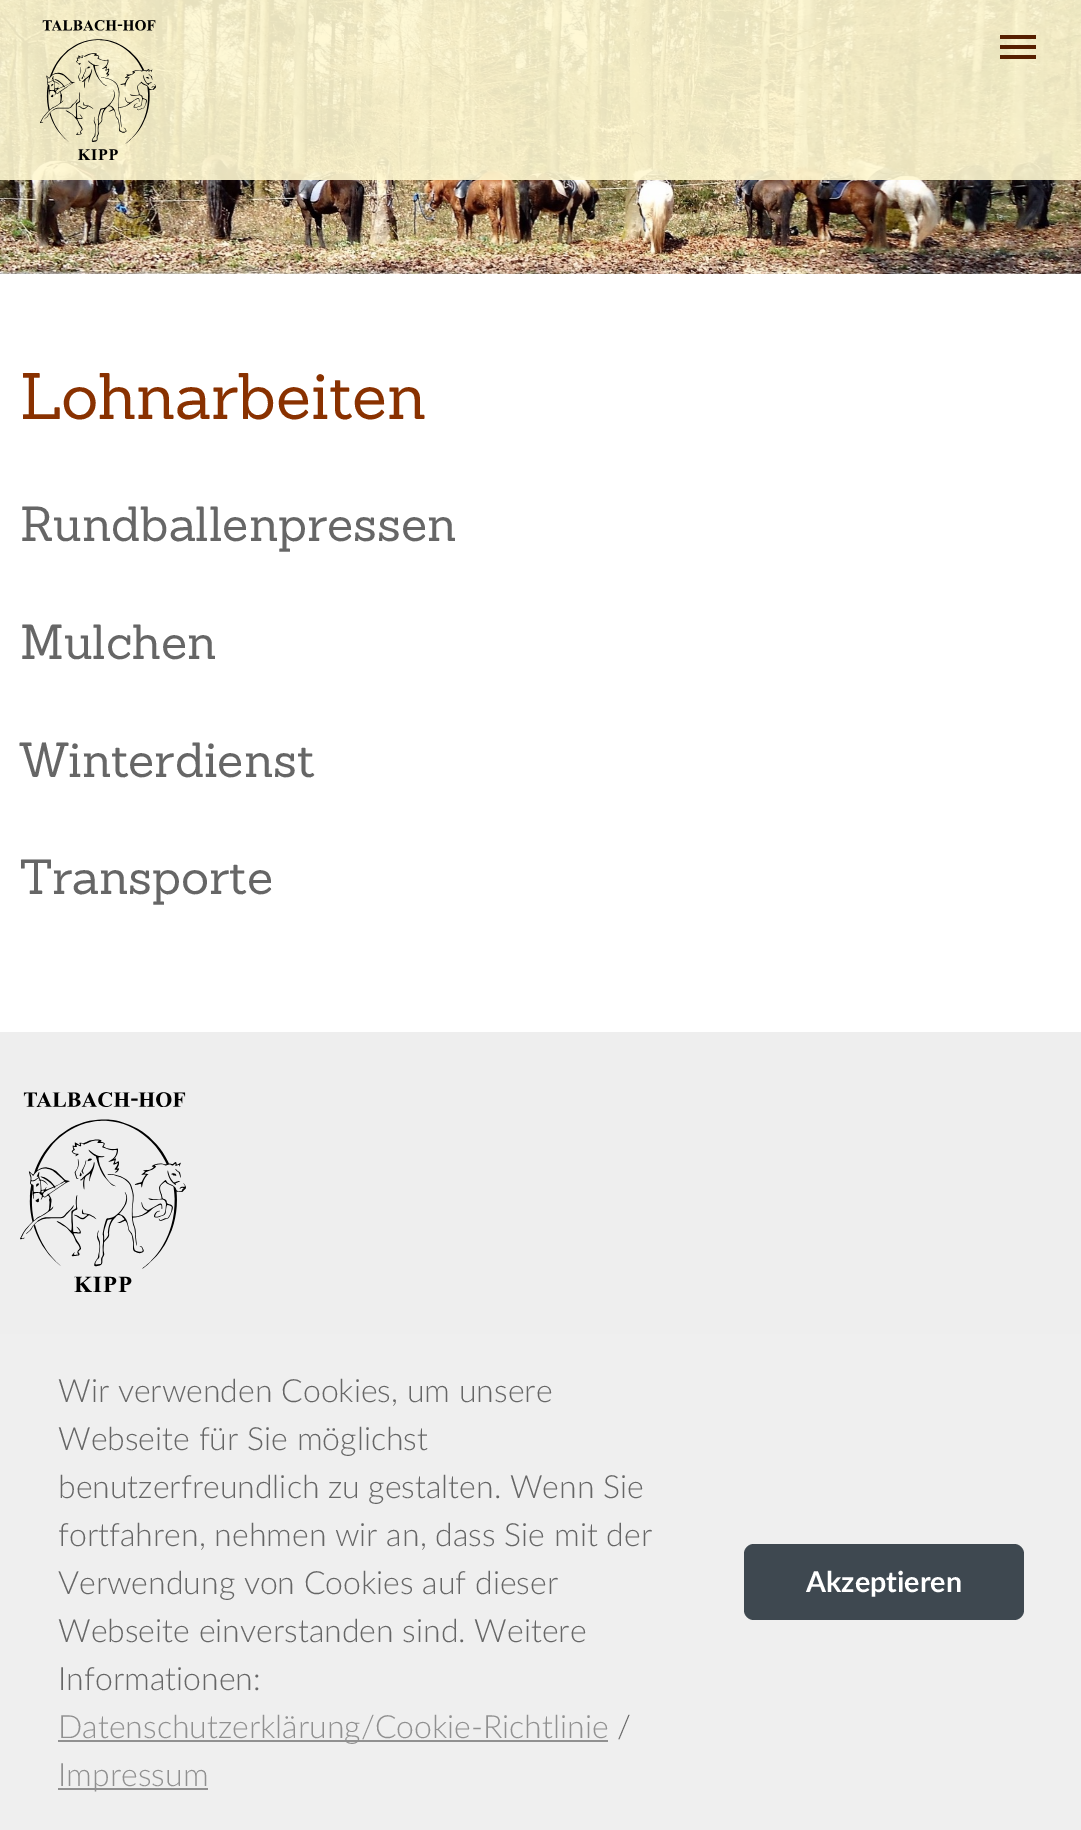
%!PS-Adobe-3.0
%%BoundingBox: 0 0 1081 1830
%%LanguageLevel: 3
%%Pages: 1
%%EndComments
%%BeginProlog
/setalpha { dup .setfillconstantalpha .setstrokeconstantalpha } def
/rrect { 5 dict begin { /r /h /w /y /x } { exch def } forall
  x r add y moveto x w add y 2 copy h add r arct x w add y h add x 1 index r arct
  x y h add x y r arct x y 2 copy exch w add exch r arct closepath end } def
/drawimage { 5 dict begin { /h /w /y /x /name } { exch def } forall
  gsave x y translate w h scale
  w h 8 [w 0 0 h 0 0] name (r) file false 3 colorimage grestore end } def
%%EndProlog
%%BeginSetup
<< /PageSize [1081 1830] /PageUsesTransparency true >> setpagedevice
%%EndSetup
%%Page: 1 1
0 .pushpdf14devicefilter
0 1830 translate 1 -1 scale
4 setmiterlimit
1 setgray
0 0 1081 1830 rectfill
(images/1.raw) 0 0 1081 274 drawimage
0.9 setalpha
1 0.973 0.82 setrgbcolor
0 0 1081 180 rectfill
1 setalpha
(images/2.raw) 40 20 116 140 drawimage
0.337 0.122 0 setrgbcolor
newpath 1000 59 moveto 1036 59 lineto 1036 55 lineto 1000 55 lineto closepath 1000 49 moveto 1036 49 lineto 1036 45 lineto 1000 45 lineto closepath 1000 35 moveto 1000 39 lineto 1036 39 lineto 1036 35 lineto closepath fill
0.933 setgray
0 1032 1081 302 rectfill
(images/3.raw) 20 1092 166 200 drawimage
0.937 setgray
0 1334 1081 496 rectfill
0.565 setgray
58 1740 550 2 rectfill
58 1788 150 2 rectfill
0.243 0.282 0.314 setrgbcolor
744 1544 280 76 10 rrect fill
/Sanchez-Regular [64 0 0 -64 0 0] selectfont
0.537 0.192 0 setrgbcolor
20 419 moveto (Lohnarbeiten) show
/Sanchez-Regular [48 0 0 -48 0 0] selectfont
0.4 setgray
20 541 moveto (Rundballenpressen) show
20 659 moveto (Mulchen) show
20 777 moveto (Winterdienst) show
20 894 moveto (Transporte) show
/Lato-Light [32 0 0 -32 0 0] selectfont
58 1402 moveto (Wir verwenden Cookies, um unsere) show
58 1450 moveto (Webseite für Sie möglichst) show
58 1498 moveto (benutzerfreundlich zu gestalten. Wenn Sie) show
58 1546 moveto (fortfahren, nehmen wir an, dass Sie mit der) show
58 1594 moveto (Verwendung von Cookies auf dieser) show
58 1642 moveto (Webseite einverstanden sind. Weitere) show
58 1690 moveto (Informationen:) show
0.565 setgray
58 1738 moveto (Datenschutzerklärung/Cookie-Richtlinie) show
0.4 setgray
617 1738 moveto (/) show
0.565 setgray
58 1786 moveto (Impressum) show
/Lato-Bold [28.75 0 0 -28.75 0 0] selectfont
1 setgray
806 1592 moveto (Akzeptieren) show
.poppdf14devicefilter showpage
%%EOF
